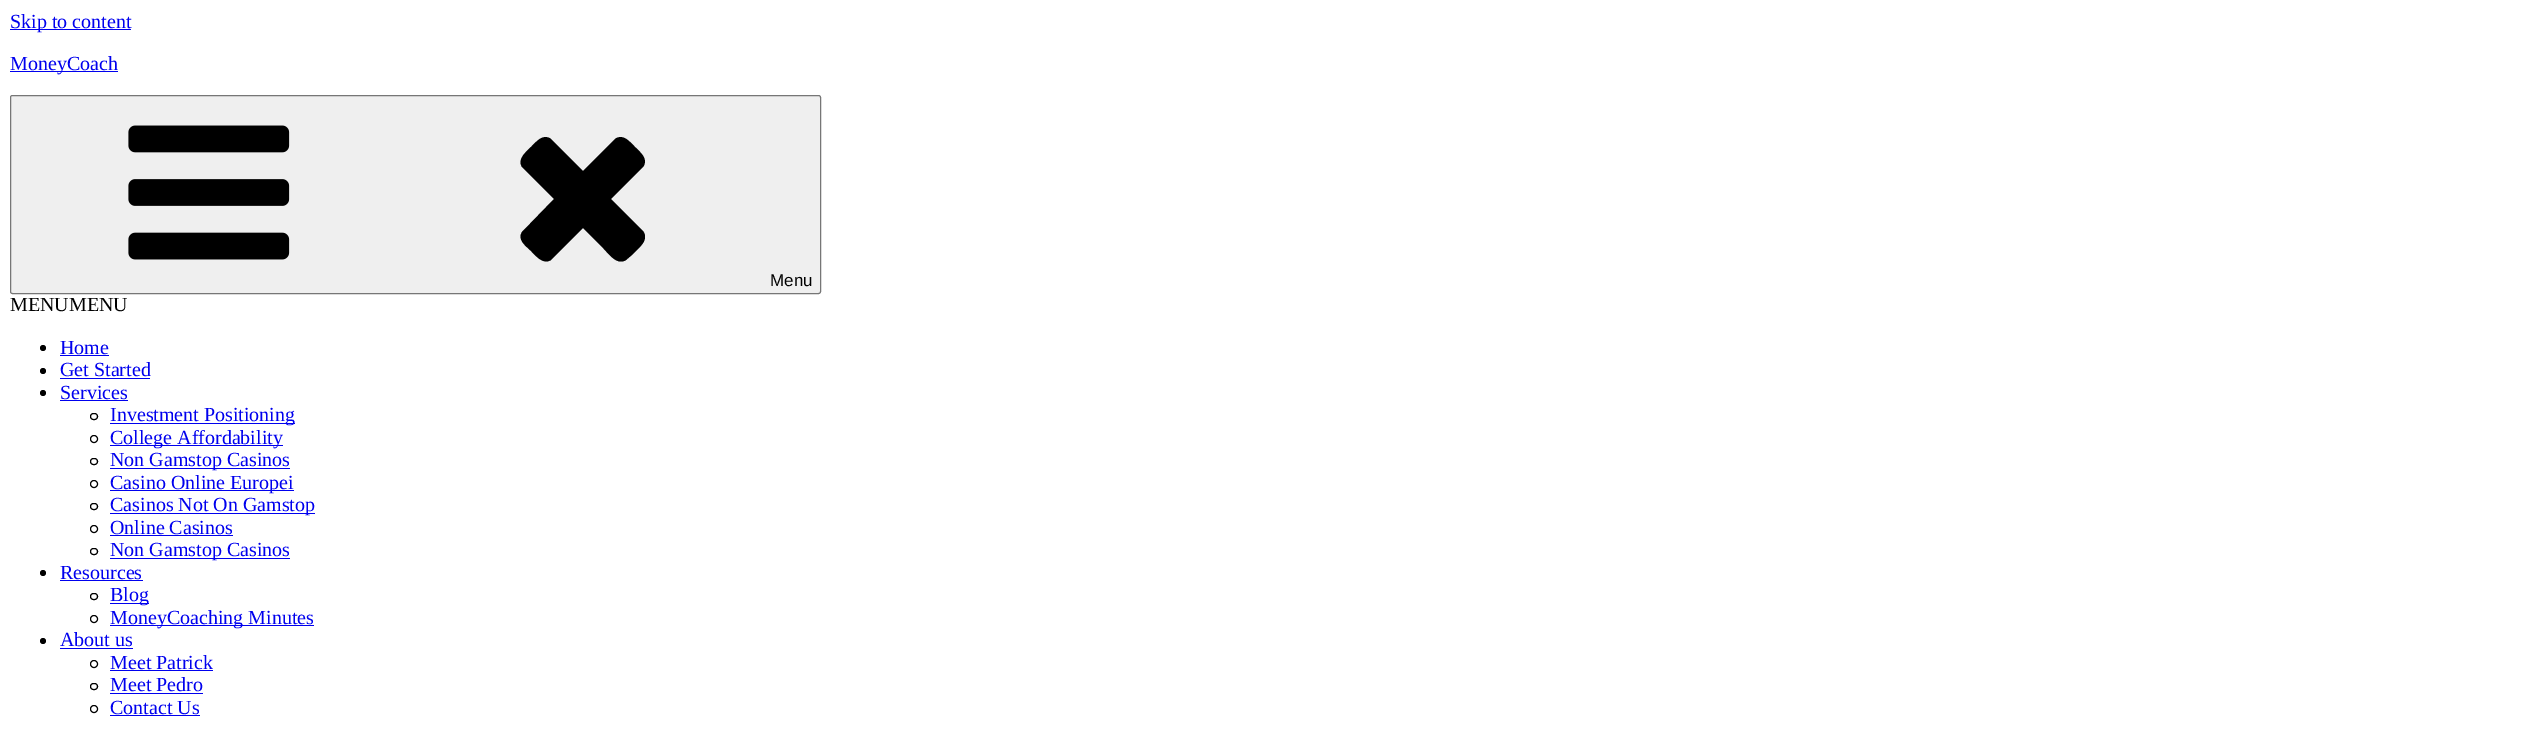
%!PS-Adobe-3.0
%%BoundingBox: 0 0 2539 751
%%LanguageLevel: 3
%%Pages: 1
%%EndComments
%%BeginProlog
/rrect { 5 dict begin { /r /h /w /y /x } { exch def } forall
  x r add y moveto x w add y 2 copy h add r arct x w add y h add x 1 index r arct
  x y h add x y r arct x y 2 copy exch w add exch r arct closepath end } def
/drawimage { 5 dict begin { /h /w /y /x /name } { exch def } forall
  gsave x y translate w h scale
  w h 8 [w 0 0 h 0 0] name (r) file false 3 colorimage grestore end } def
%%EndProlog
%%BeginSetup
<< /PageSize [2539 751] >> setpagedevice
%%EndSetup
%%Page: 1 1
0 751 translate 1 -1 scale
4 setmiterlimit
1 setgray
0 0 2539 751 rectfill
0 0 0.933 setrgbcolor
10 29 121 1 rectfill
10 71 108 1 rectfill
0.937 setgray
10.5 95.5 810 198 2 rrect gsave fill grestore
0.463 setgray
stroke
(images/1.raw) 128 125 162 135 drawimage
0 setgray
newpath 645 237 moveto 645 244 637 249 633 254 curveto 626 260 lineto 617 266 609 254 603 248 curveto 583 228 lineto 551 260 lineto 543 265 536 256 531 251 curveto 526 246 517 240 522 232 curveto 554 199 lineto 522 167 lineto 517 159 526 152 531 147 curveto 536 142 543 133 551 139 curveto 583 171 lineto 615 139 lineto 623 133 630 142 635 147 curveto 640 152 649 159 643 167 curveto 611 199 lineto 642 230 lineto 644 232 645 234 645 237 curveto closepath fill
newpath 43 348 3 0 360 arc closepath fill
0 0 0.933 setrgbcolor
60 355 49 1 rectfill
0 setgray
newpath 43 371 3 0 360 arc closepath fill
0 0 0.933 setrgbcolor
60 378 90 1 rectfill
0 setgray
newpath 43 393 3 0 360 arc closepath fill
0 0 0.933 setrgbcolor
60 400 68 1 rectfill
0 setgray
90.5 413.5 7 6 3 rrect stroke
0 0 0.933 setrgbcolor
110 423 185 1 rectfill
0 setgray
newpath 94 439 3.5 0 360 arc closepath stroke
0 0 0.933 setrgbcolor
110 445 173 1 rectfill
0 setgray
90.5 458.5 7 6 3 rrect stroke
0 0 0.933 setrgbcolor
110 468 180 1 rectfill
0 setgray
newpath 94 484 3.5 0 360 arc closepath stroke
0 0 0.933 setrgbcolor
110 490 184 1 rectfill
0 setgray
90.5 503.5 7 6 3 rrect stroke
0 0 0.933 setrgbcolor
110 513 205 1 rectfill
0 setgray
newpath 94 529 3.5 0 360 arc closepath stroke
0 0 0.933 setrgbcolor
110 535 123 1 rectfill
0 setgray
90.5 548.5 7 6 3 rrect stroke
0 0 0.933 setrgbcolor
110 558 180 1 rectfill
0 setgray
newpath 43 573 3 0 360 arc closepath fill
0 0 0.933 setrgbcolor
60 580 83 1 rectfill
0 setgray
90.5 593.5 7 6 3 rrect stroke
0 0 0.933 setrgbcolor
110 603 39 1 rectfill
0 setgray
newpath 94 619 3.5 0 360 arc closepath stroke
0 0 0.933 setrgbcolor
110 625 204 1 rectfill
0 setgray
newpath 43 641 3 0 360 arc closepath fill
0 0 0.933 setrgbcolor
60 648 73 1 rectfill
0 setgray
newpath 94 664 3.5 0 360 arc closepath stroke
0 0 0.933 setrgbcolor
110 670 103 1 rectfill
0 setgray
90.5 683.5 7 6 3 rrect stroke
0 0 0.933 setrgbcolor
110 693 93 1 rectfill
0 setgray
newpath 94 709 3.5 0 360 arc closepath stroke
0 0 0.933 setrgbcolor
110 715 90 1 rectfill
/LiberationSerif-Regular [20 0 0 -20 0 0] selectfont
10 28 moveto (Skip to content) show
10 70 moveto (MoneyCoach) show
/LiberationSans-Regular [17 0 0 -17 0 0] selectfont
0 setgray
770 286 moveto (Menu) show
/LiberationSerif-Regular [20 0 0 -20 0 0] selectfont
10 311 moveto (MENUMENU) show
0 0 0.933 setrgbcolor
60 354 moveto (Home) show
60 376 moveto (Get Started) show
60 399 moveto (Services) show
110 421 moveto (Investment Positioning) show
110 444 moveto (College Affordability) show
110 466 moveto (Non Gamstop Casinos) show
110 489 moveto (Casino Online Europei) show
110 511 moveto (Casinos Not On Gamstop) show
110 534 moveto (Online Casinos) show
110 556 moveto (Non Gamstop Casinos) show
60 579 moveto (Resources) show
110 601 moveto (Blog) show
110 624 moveto (MoneyCoaching Minutes) show
60 646 moveto (About us) show
110 669 moveto (Meet Patrick) show
110 691 moveto (Meet Pedro) show
110 714 moveto (Contact Us) show
showpage
%%EOF
